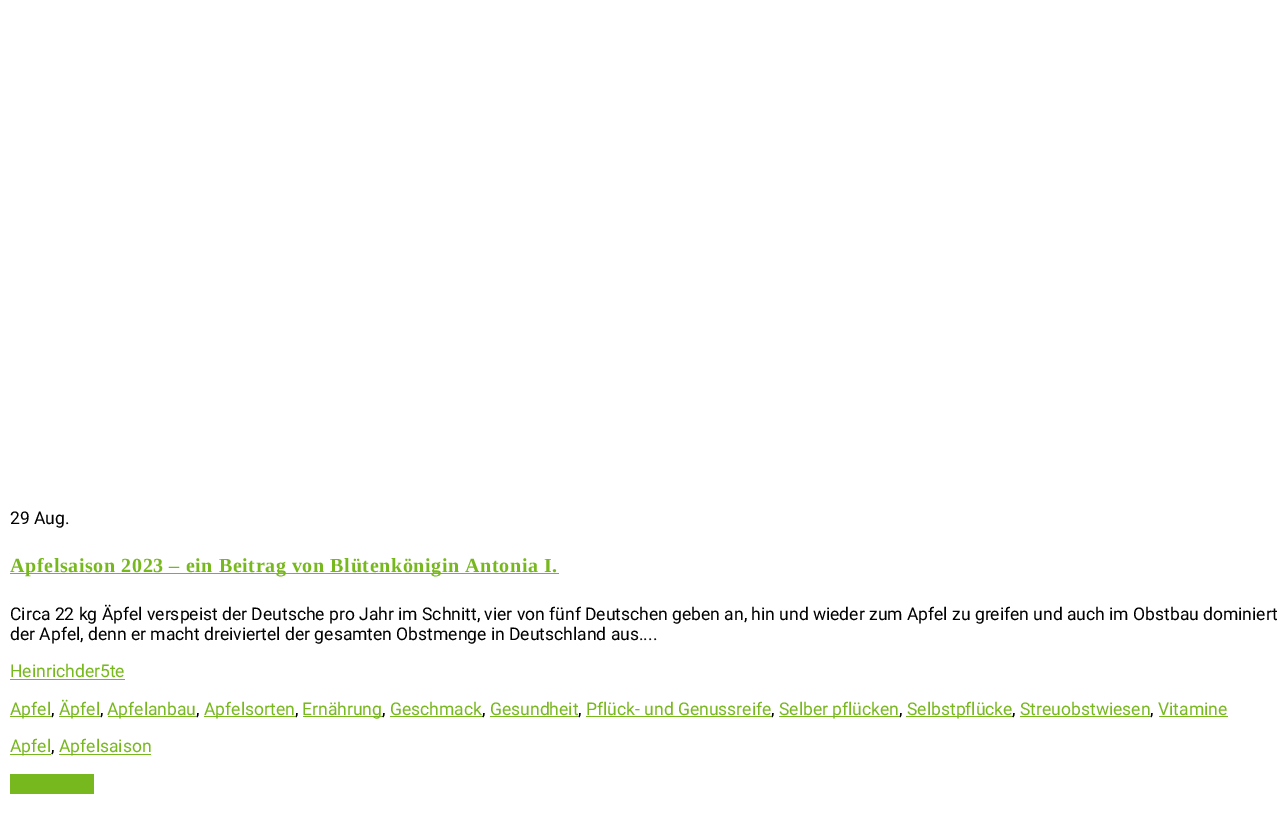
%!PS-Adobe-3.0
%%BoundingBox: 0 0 1288 825
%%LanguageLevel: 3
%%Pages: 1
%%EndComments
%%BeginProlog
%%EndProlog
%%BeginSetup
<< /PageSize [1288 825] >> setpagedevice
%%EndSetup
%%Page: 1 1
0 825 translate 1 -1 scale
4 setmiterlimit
1 setgray
0 0 1288 825 rectfill
0.467 0.722 0.118 setrgbcolor
10 573 549 1 rectfill
10 679 115 1 rectfill
10 716 41 1 rectfill
59 716 41 1 rectfill
108 716 88 1 rectfill
204 716 91 1 rectfill
303 716 80 1 rectfill
390 716 93 1 rectfill
490 716 88 1 rectfill
586 716 185 1 rectfill
779 716 120 1 rectfill
906 716 107 1 rectfill
1020 716 130 1 rectfill
1159 716 69 1 rectfill
10 754 41 1 rectfill
59 754 92 1 rectfill
10 774 84 20 rectfill
/Roboto-Regular [17.5 0 0 -17.5 0 0] selectfont
0 setgray
10 524 moveto (29 Aug.) show
/LiberationSerif-Bold [20 0 0 -20 0 0] selectfont
0.467 0.722 0.118 setrgbcolor
10 572 moveto 0.62 0 (Apfelsaison 2023 – ein Beitrag von Blütenkönigin Antonia I.) ashow
/Roboto-Regular [17.5 0 0 -17.5 0 0] selectfont
0 setgray
10 620 moveto (Circa 22 kg Äpfel verspeist der Deutsche pro Jahr im Schnitt, vier von fünf Deutschen geben an, hin und wieder zum Apfel zu greifen und auch im Obstbau dominiert) show
10 640 moveto (der Apfel, denn er macht dreiviertel der gesamten Obstmenge in Deutschland aus....) show
0.467 0.722 0.118 setrgbcolor
10 677 moveto (Heinrichder5te) show
10 715 moveto (Apfel) show
0 setgray
51 715 moveto (,) show
0.467 0.722 0.118 setrgbcolor
59 715 moveto (Äpfel) show
0 setgray
100 715 moveto (,) show
0.467 0.722 0.118 setrgbcolor
107 715 moveto (Apfelanbau) show
0 setgray
196 715 moveto (,) show
0.467 0.722 0.118 setrgbcolor
204 715 moveto (Apfelsorten) show
0 setgray
295 715 moveto (,) show
0.467 0.722 0.118 setrgbcolor
302 715 moveto (Ernährung) show
0 setgray
382 715 moveto (,) show
0.467 0.722 0.118 setrgbcolor
390 715 moveto (Geschmack) show
0 setgray
482 715 moveto (,) show
0.467 0.722 0.118 setrgbcolor
490 715 moveto (Gesundheit) show
0 setgray
578 715 moveto (,) show
0.467 0.722 0.118 setrgbcolor
586 715 moveto (Pflück- und Genussreife) show
0 setgray
771 715 moveto (,) show
0.467 0.722 0.118 setrgbcolor
779 715 moveto (Selber pflücken) show
0 setgray
899 715 moveto (,) show
0.467 0.722 0.118 setrgbcolor
907 715 moveto (Selbstpflücke) show
0 setgray
1012 715 moveto (,) show
0.467 0.722 0.118 setrgbcolor
1020 715 moveto (Streuobstwiesen) show
0 setgray
1150 715 moveto (,) show
0.467 0.722 0.118 setrgbcolor
1158 715 moveto (Vitamine) show
10 752 moveto (Apfel) show
0 setgray
51 752 moveto (,) show
0.467 0.722 0.118 setrgbcolor
59 752 moveto (Apfelsaison) show
showpage
%%EOF
